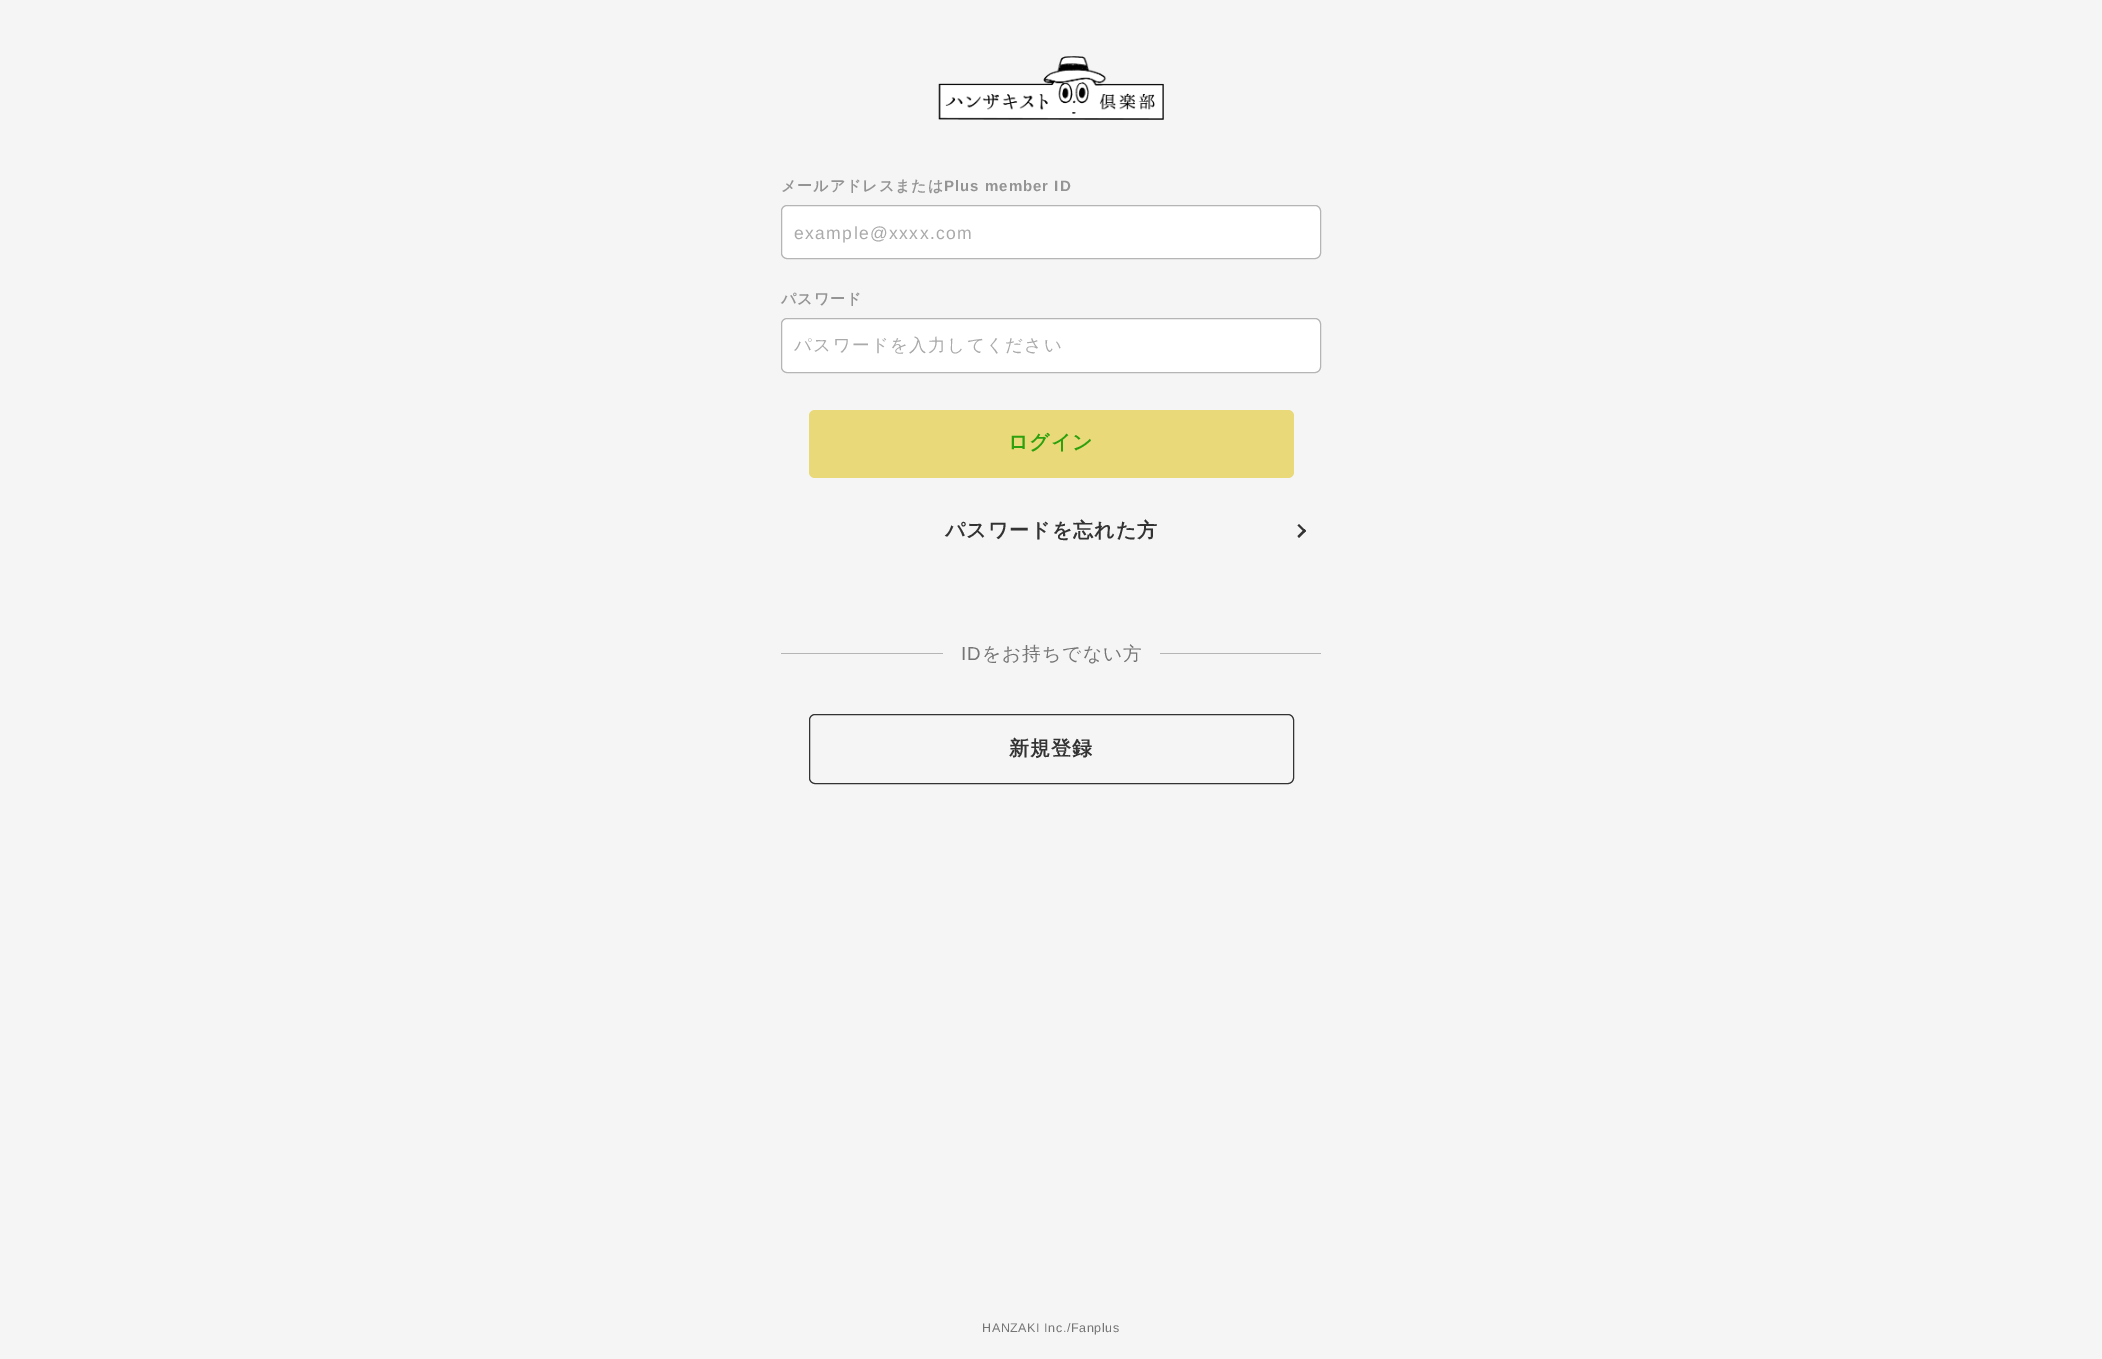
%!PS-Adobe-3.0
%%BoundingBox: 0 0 2102 1359
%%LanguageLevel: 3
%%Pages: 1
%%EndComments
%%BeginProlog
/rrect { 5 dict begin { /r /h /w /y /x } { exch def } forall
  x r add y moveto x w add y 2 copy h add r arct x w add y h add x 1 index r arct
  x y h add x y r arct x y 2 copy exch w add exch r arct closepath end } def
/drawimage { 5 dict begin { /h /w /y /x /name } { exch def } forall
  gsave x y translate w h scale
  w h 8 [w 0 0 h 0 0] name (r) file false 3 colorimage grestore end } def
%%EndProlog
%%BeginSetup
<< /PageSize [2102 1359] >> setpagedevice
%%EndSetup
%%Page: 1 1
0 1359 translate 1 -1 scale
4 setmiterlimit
0.961 setgray
0 0 2102 1359 rectfill
(images/1.raw) 938 56 226 64 drawimage
1 setgray
781.5 205.5 539 53 5.5 rrect gsave fill grestore
0.71 setgray
stroke
1 setgray
781.5 318.5 539 54 5.5 rrect gsave fill grestore
0.71 setgray
stroke
0.914 0.851 0.475 setrgbcolor
809 410 485 68 6 rrect fill
0.2 setgray
newpath 1304.5 532.5 moveto 1297.5 525.5 lineto 1299 524 lineto 1306 531 lineto closepath fill
newpath 1299 538 moveto 1297.5 536 lineto 1304.5 529 lineto 1306 531 lineto closepath fill
0.71 setgray
781 653 162 1 rectfill
1160 653 161 1 rectfill
0.2 setgray
809.5 714.5 484 69 5.5 rrect stroke
/WenQuanYiZenHei-Bold [15 0 0 -15 0 0] selectfont
0.58 setgray
781 191 moveto 1 0 (メールアドレスまたは) ashow
/LiberationSans-Bold [15 0 0 -15 0 0] selectfont
944 191 moveto 1 0 (Plus member ID) ashow
/LiberationSans-Regular [17.5 0 0 -17.5 0 0] selectfont
0.667 setgray
794 239 moveto 1.4 0 (example@xxxx.com) ashow
/WenQuanYiZenHei-Bold [15 0 0 -15 0 0] selectfont
0.58 setgray
781 304 moveto 1 0 (パスワード) ashow
/WenQuanYiZenHei-Medium [17.5 0 0 -17.5 0 0] selectfont
0.667 setgray
794 351 moveto 1.4 0 (パスワードを入力してください) ashow
/WenQuanYiZenHei-Bold [20 0 0 -20 0 0] selectfont
0.173 0.631 0.051 setrgbcolor
1008 449 moveto 1 0 (ログイン) ashow
0.2 setgray
945 537 moveto 1 0 (パスワードを忘れた方) ashow
/LiberationSans-Regular [18.75 0 0 -18.75 0 0] selectfont
0.459 setgray
961 660 moveto 1 0 (ID) ashow
/WenQuanYiZenHei-Medium [18.75 0 0 -18.75 0 0] selectfont
982 660 moveto 1 0 (をお持ちでない方) ashow
/WenQuanYiZenHei-Bold [20 0 0 -20 0 0] selectfont
0.2 setgray
1009 755 moveto 1 0 (新規登録) ashow
/LiberationSans-Regular [12.5 0 0 -12.5 0 0] selectfont
0.459 setgray
982 1332 moveto 0.6 0 (HANZAKI Inc./Fanplus) ashow
showpage
%%EOF
